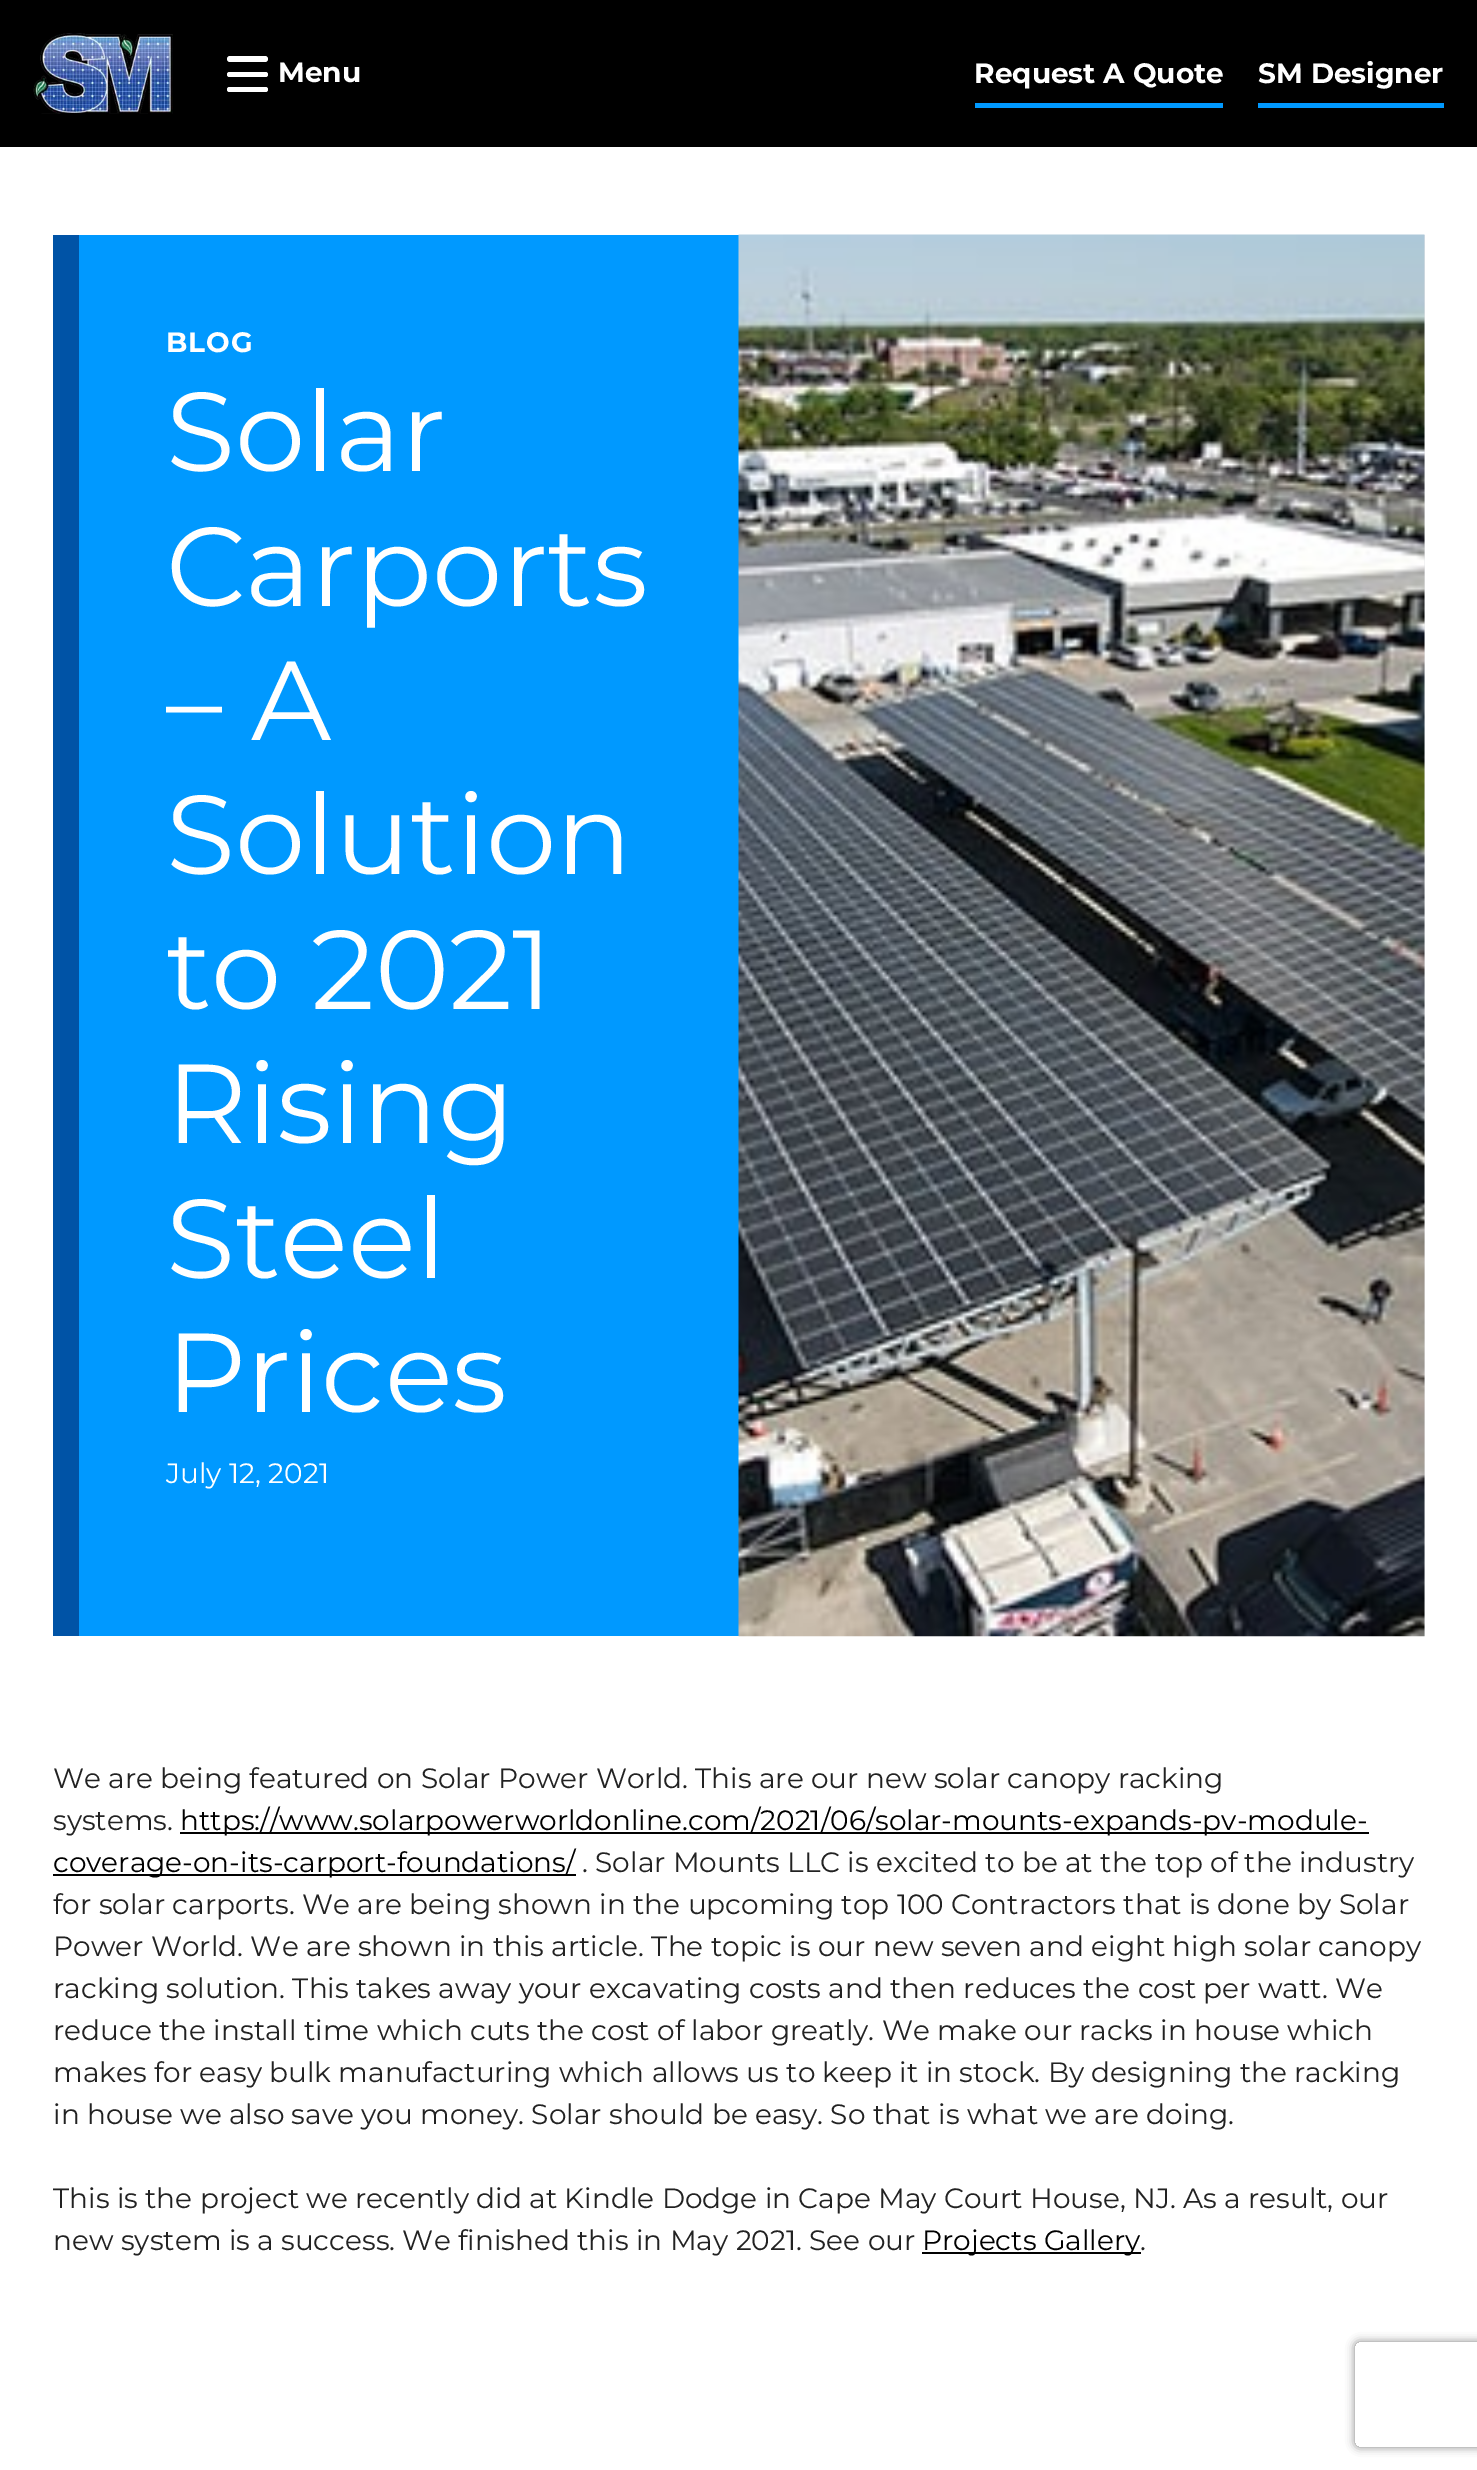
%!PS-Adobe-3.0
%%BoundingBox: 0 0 1477 2470
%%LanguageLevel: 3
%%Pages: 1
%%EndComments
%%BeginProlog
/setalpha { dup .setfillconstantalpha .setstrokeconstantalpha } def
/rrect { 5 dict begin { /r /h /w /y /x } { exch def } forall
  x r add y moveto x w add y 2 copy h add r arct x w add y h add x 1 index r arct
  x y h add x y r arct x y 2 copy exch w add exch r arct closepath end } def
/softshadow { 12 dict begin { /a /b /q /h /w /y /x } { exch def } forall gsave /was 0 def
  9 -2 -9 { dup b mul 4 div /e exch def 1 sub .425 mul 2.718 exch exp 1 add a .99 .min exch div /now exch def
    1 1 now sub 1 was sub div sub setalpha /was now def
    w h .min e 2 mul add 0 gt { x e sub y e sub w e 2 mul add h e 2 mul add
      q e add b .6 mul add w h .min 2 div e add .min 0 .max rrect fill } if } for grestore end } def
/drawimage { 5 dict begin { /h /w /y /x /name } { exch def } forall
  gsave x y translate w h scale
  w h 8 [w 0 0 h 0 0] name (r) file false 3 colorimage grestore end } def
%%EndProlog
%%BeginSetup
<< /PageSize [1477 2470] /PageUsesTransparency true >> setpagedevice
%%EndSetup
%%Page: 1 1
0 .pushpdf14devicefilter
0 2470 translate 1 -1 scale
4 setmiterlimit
1 setgray
0 0 1477 2470 rectfill
0 setgray
0 0 1477 147 rectfill
(images/1.raw) 33 33 140 81 drawimage
1 setgray
227 56 41 6 3 rrect fill
227 72 41 5 2.5 rrect fill
227 87 41 5 2.5 rrect fill
0 0.6 1 setrgbcolor
975 103 248 5 rectfill
1258 103 186 5 rectfill
79 235 660 1401 rectfill
0 0.325 0.651 setrgbcolor
53 235 26 1401 rectfill
0.906 0.91 0.918 setrgbcolor
1424 235 1 1401 rectfill
(images/2.raw) 738 234 687 1403 drawimage
0 setgray
180 1832 1189 2 rectfill
53 1874 523 2 rectfill
922 2252 219 2 rectfill
gsave
newpath 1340 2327 moveto 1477 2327 lineto 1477 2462 lineto 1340 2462 lineto closepath 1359 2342 moveto 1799 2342 lineto 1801 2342 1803 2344 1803 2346 curveto 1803 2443 lineto 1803 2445 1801 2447 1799 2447 curveto 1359 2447 lineto 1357 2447 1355 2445 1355 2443 curveto 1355 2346 lineto 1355 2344 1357 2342 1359 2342 curveto closepath eoclip newpath
0.502 setgray
1355 2342 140 105 4 4.5 1 softshadow
grestore
/Montserrat-Bold [28 0 0 -28 0 0] selectfont
1 setgray
278 82 moveto (Menu) show
974 83 moveto (Request A Quote) show
1258 83 moveto (SM Designer) show
166 352 moveto 1 0 (BLOG) ashow
/Montserrat-Regular [112 0 0 -112 0 0] selectfont
166 471 moveto (Solar) show
166 606 moveto (Carports) show
166 740 moveto (– A) show
166 874 moveto (Solution) show
166 1009 moveto (to 2021) show
166 1143 moveto (Rising) show
166 1278 moveto (Steel) show
166 1412 moveto (Prices) show
/Montserrat-Regular [28 0 0 -28 0 0] selectfont
166 1483 moveto (July 12, 2021) show
0.133 setgray
53 1788 moveto (We are being featured on Solar Power World. This are our new solar canopy racking) show
53 1830 moveto (systems.) show
0 setgray
180 1830 moveto (https://www.solarpowerworldonline.com/2021/06/solar-mounts-expands-pv-module-) show
53 1872 moveto (coverage-on-its-carport-foundations/) show
0.133 setgray
582 1872 moveto (. Solar Mounts LLC is excited to be at the top of the industry) show
53 1914 moveto (for solar carports. We are being shown in the upcoming top 100 Contractors that is done by Solar) show
53 1956 moveto (Power World. We are shown in this article. The topic is our new seven and eight high solar canopy) show
53 1998 moveto (racking solution. This takes away your excavating costs and then reduces the cost per watt. We) show
53 2040 moveto (reduce the install time which cuts the cost of labor greatly. We make our racks in house which) show
53 2082 moveto (makes for easy bulk manufacturing which allows us to keep it in stock. By designing the racking) show
53 2124 moveto (in house we also save you money. Solar should be easy. So that is what we are doing.) show
53 2208 moveto (This is the project we recently did at Kindle Dodge in Cape May Court House, NJ. As a result, our) show
53 2250 moveto (new system is a success. We finished this in May 2021. See our) show
0 setgray
922 2250 moveto (Projects Gallery) show
0.133 setgray
1140 2250 moveto (.) show
.poppdf14devicefilter showpage
%%EOF
